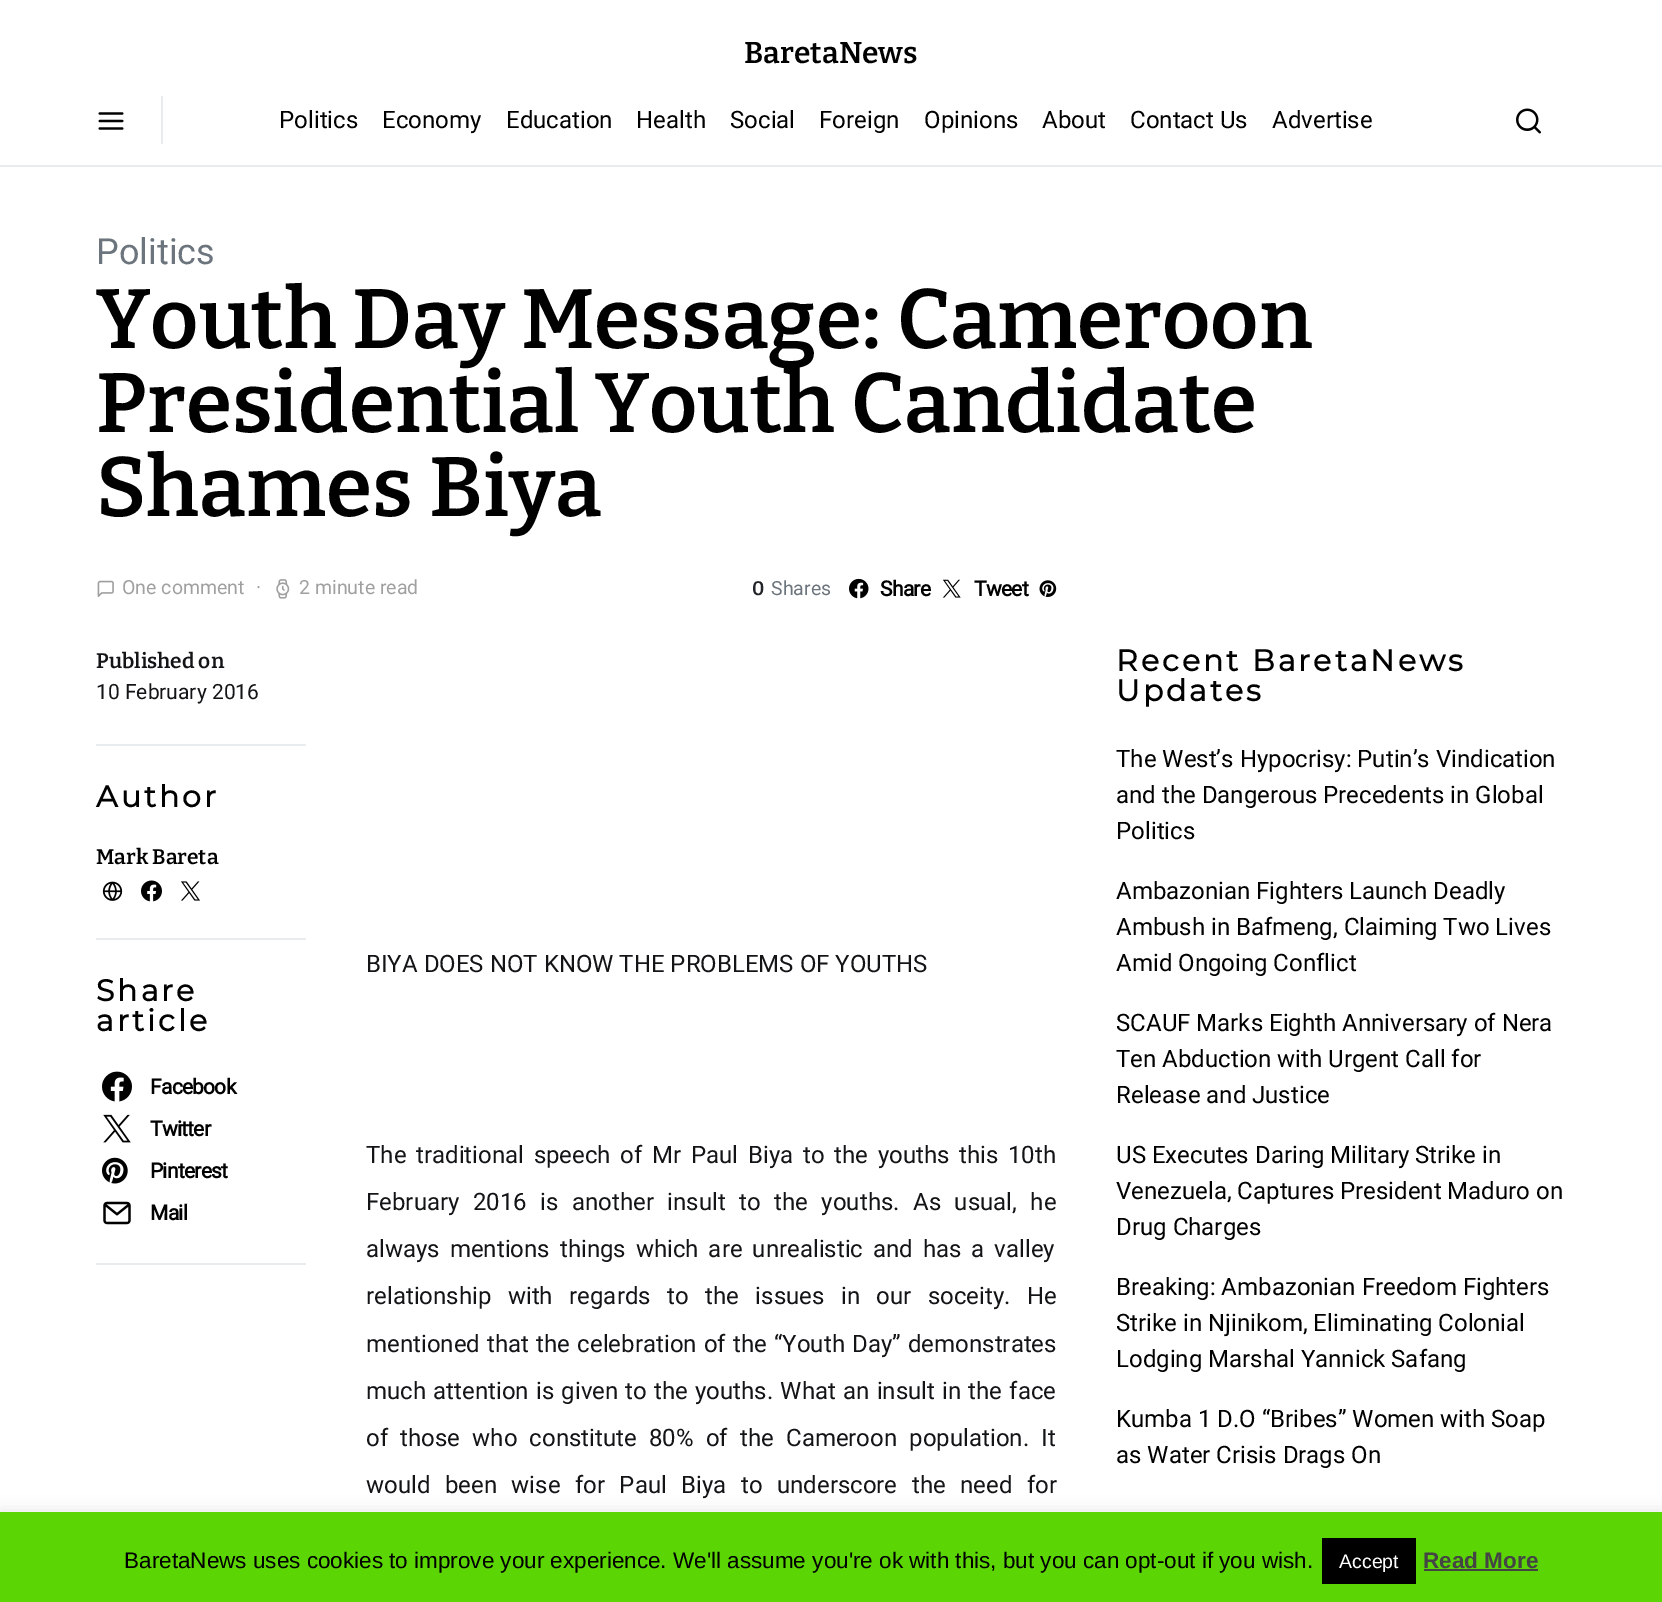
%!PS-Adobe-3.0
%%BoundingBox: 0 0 1662 1602
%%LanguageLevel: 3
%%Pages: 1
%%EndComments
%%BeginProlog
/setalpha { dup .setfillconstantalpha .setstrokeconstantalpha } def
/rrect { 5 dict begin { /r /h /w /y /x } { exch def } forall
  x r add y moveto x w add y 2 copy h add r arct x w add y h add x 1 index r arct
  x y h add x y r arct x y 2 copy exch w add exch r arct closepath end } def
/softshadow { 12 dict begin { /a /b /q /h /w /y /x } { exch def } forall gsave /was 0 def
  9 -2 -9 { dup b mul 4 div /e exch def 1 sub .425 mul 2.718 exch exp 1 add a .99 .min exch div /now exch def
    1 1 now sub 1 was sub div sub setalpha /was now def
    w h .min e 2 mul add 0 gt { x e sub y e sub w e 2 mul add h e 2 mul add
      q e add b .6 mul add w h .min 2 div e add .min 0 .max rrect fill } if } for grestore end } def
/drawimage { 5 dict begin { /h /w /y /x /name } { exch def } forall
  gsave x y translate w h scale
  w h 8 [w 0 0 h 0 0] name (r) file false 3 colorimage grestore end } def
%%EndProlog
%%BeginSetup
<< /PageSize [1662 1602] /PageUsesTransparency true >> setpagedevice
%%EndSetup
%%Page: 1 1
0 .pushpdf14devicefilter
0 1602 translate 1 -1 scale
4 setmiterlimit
1 setgray
0 0 1662 1602 rectfill
0.914 0.925 0.937 setrgbcolor
0 165 1662 2 rectfill
161 96 2 48 rectfill
(images/1.raw) 98 112 26 18 drawimage
(images/2.raw) 1516 108 25 26 drawimage
(images/3.raw) 97 580 17 17 drawimage
(images/4.raw) 276 579 14 20 drawimage
(images/5.raw) 849 578 20 21 drawimage
(images/6.raw) 942 579 19 19 drawimage
(images/7.raw) 1039 580 18 17 drawimage
96 744 210 2 rectfill
96 938 210 2 rectfill
(images/8.raw) 102 881 21 20 drawimage
(images/9.raw) 141 880 21 22 drawimage
(images/10.raw) 181 881 19 20 drawimage
96 1263 210 2 rectfill
(images/11.raw) 102 1071 30 31 drawimage
(images/12.raw) 103 1114 28 29 drawimage
(images/13.raw) 102 1157 26 27 drawimage
(images/14.raw) 103 1201 28 24 drawimage
0.675 0.671 0.671 setrgbcolor
0 1511 1662 90 0 7.5 0.3 softshadow
0.357 0.839 0.016 setrgbcolor
0 1512 1662 90 rectfill
0 setgray
1322 1538 94 46 rectfill
0.267 setgray
1424 1569 114 2 rectfill
/Bitter-Thin [30 0 0 -30 0 0] selectfont
0 setgray
744 63 moveto (BaretaNews) show
/Roboto-Regular [24 0 0 -24 0 0] selectfont
279 128 moveto (Politics) show
382 128 moveto (Economy) show
506 128 moveto (Education) show
636 128 moveto (Health) show
730 128 moveto (Social) show
819 128 moveto (Foreign) show
924 128 moveto (Opinions) show
1042 128 moveto (About) show
1130 128 moveto (Contact Us) show
1272 128 moveto (Advertise) show
/Roboto-Regular [36 0 0 -36 0 0] selectfont
0.424 0.459 0.49 setrgbcolor
96 264 moveto (Politics) show
/Bitter-Thin [84 0 0 -84 0 0] selectfont
0 setgray
96 348 moveto (Youth Day Message: Cameroon) show
96 432 moveto (Presidential Youth Candidate) show
96 516 moveto (Shames Biya) show
/Roboto-Regular [19.5 0 0 -19.5 0 0] selectfont
0.627 setgray
122 594 moveto (One comment) show
256 594 moveto (·) show
299 594 moveto (2 minute read) show
/Bitter-Thin [19.5 0 0 -19.5 0 0] selectfont
0.129 0.145 0.161 setrgbcolor
752 595 moveto (0) show
/Roboto-Regular [19.5 0 0 -19.5 0 0] selectfont
0.424 0.459 0.49 setrgbcolor
771 595 moveto (Shares) show
/Roboto-Bold [21 0 0 -21 0 0] selectfont
0 setgray
880 596 moveto -0.75 0 (Share) ashow
974 596 moveto -0.75 0 (Tweet) ashow
/Bitter-Thin [21 0 0 -21 0 0] selectfont
0.071 0.078 0.086 setrgbcolor
96 668 moveto (Published on) show
/Roboto-Regular [21 0 0 -21 0 0] selectfont
96 699 moveto (10 February 2016) show
/Montserrat-Bold [30 0 0 -30 0 0] selectfont
0 setgray
96 807 moveto 3 0 (Author) ashow
/Bitter-Thin [21 0 0 -21 0 0] selectfont
96 864 moveto (Mark Bareta) show
/Montserrat-Bold [30 0 0 -30 0 0] selectfont
96 1001 moveto 3 0 (Share) ashow
96 1031 moveto 3 0 (article) ashow
/Roboto-Bold [21 0 0 -21 0 0] selectfont
150 1094 moveto -0.75 0 (Facebook) ashow
150 1136 moveto -0.75 0 (Twitter) ashow
150 1178 moveto -0.75 0 (Pinterest) ashow
150 1220 moveto -0.75 0 (Mail) ashow
/Roboto-Regular [24 0 0 -24 0 0] selectfont
0.071 0.078 0.086 setrgbcolor
366 972 moveto (BIYA DOES NOT KNOW THE PROBLEMS OF YOUTHS) show
366 1163 moveto 3.75 0 32 (The traditional speech of Mr Paul Biya to the youths this 10th) widthshow
366 1210 moveto 7.5 0 32 (February 2016 is another insult to the youths. As usual, he) widthshow
366 1257 moveto 4 0 32 (always mentions things which are unrealistic and has a valley) widthshow
366 1304 moveto 10.5 0 32 (relationship with regards to the issues in our soceity. He) widthshow
366 1352 moveto 1.25 0 32 (mentioned that the celebration of the “Youth Day” demonstrates) widthshow
366 1399 moveto 1.25 0 32 (much attention is given to the youths. What an insult in the face) widthshow
366 1446 moveto 6.25 0 32 (of those who constitute 80% of the Cameroon population. It) widthshow
366 1493 moveto 8.5 0 32 (would been wise for Paul Biya to underscore the need for) widthshow
/Montserrat-Bold [30 0 0 -30 0 0] selectfont
0 setgray
1116 671 moveto 3 0 (Recent BaretaNews) ashow
1116 701 moveto 3 0 (Updates) ashow
/Roboto-Regular [24 0 0 -24 0 0] selectfont
1116 767 moveto (The West’s Hypocrisy: Putin’s Vindication) show
1116 803 moveto (and the Dangerous Precedents in Global) show
1116 839 moveto (Politics) show
1116 899 moveto (Ambazonian Fighters Launch Deadly) show
1116 935 moveto (Ambush in Bafmeng, Claiming Two Lives) show
1116 971 moveto (Amid Ongoing Conflict) show
1116 1031 moveto (SCAUF Marks Eighth Anniversary of Nera) show
1116 1067 moveto (Ten Abduction with Urgent Call for) show
1116 1103 moveto (Release and Justice) show
1116 1163 moveto (US Executes Daring Military Strike in) show
1116 1199 moveto (Venezuela, Captures President Maduro on) show
1116 1235 moveto (Drug Charges) show
1116 1295 moveto (Breaking: Ambazonian Freedom Fighters) show
1116 1331 moveto (Strike in Njinikom, Eliminating Colonial) show
1116 1367 moveto (Lodging Marshal Yannick Safang) show
1116 1427 moveto (Kumba 1 D.O “Bribes” Women with Soap) show
1116 1463 moveto (as Water Crisis Drags On) show
/LiberationSans-Regular [22.5 0 0 -22.5 0 0] selectfont
124 1568 moveto (BaretaNews uses cookies to improve your experience. We'll assume you're ok with this, but you can opt-out if you wish.) show
/LiberationSans-Regular [19.5 0 0 -19.5 0 0] selectfont
1 setgray
1339 1568 moveto (Accept) show
/LiberationSans-Bold [22.5 0 0 -22.5 0 0] selectfont
0.267 setgray
1423 1568 moveto (Read More) show
.poppdf14devicefilter showpage
%%EOF
